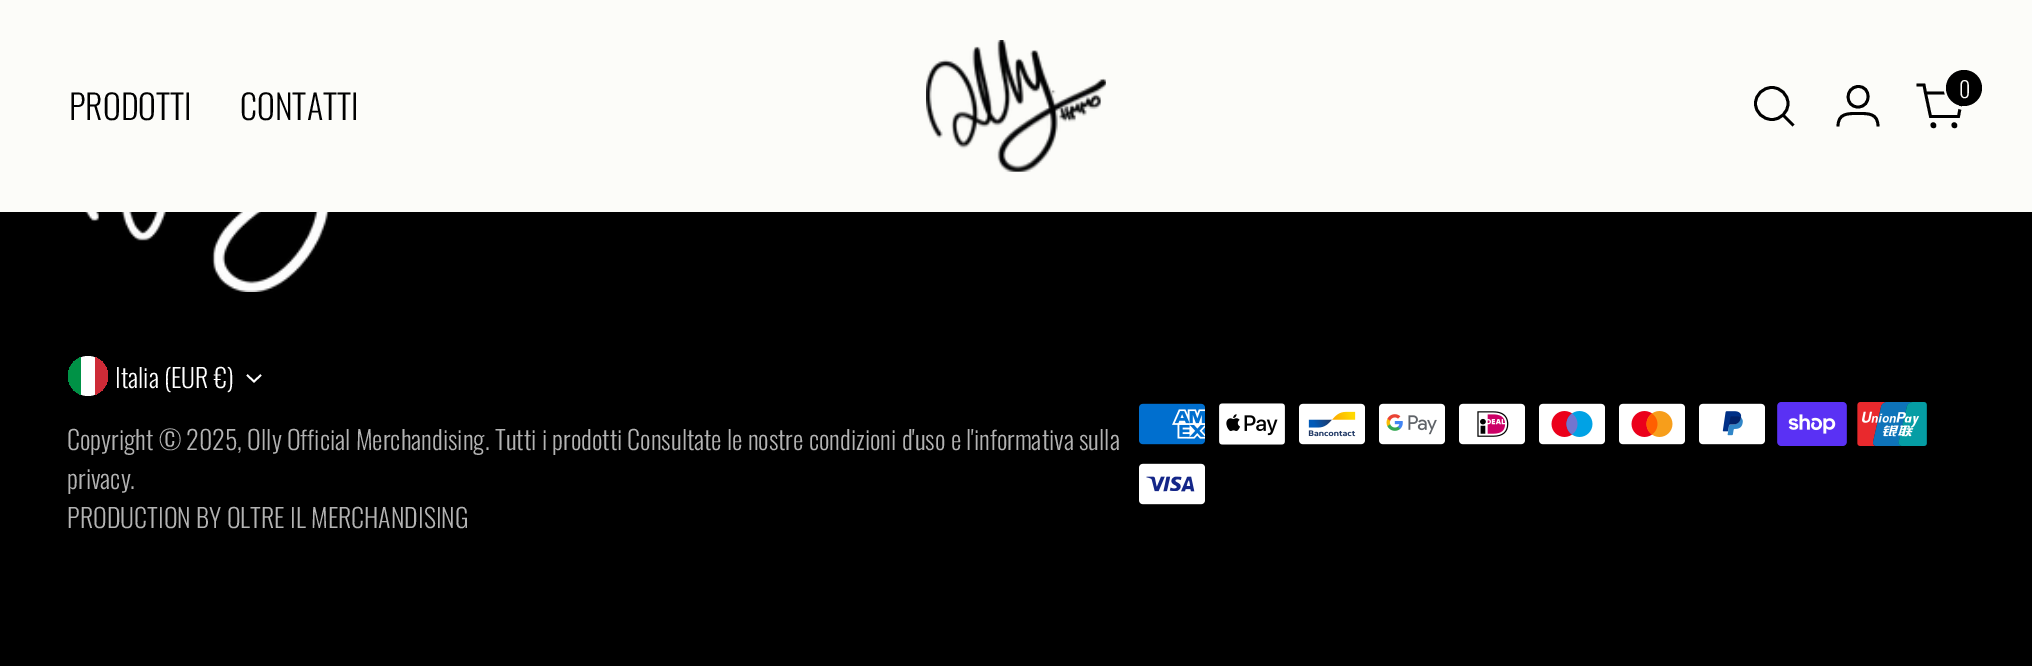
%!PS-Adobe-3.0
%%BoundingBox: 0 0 2032 666
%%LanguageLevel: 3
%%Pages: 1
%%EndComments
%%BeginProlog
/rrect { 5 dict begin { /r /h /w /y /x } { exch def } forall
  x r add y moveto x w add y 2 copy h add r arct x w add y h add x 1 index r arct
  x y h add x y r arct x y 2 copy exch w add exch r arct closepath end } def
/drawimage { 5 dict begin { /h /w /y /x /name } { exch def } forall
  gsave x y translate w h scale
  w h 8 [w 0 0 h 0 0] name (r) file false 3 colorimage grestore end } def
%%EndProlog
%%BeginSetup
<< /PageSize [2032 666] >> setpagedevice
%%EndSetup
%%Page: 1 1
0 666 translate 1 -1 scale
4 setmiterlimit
0 setgray
0 0 2032 666 rectfill
0.988 0.988 0.976 setrgbcolor
0 0 2032 212 rectfill
(images/1.raw) 926 40 180 132 drawimage
0 setgray
2.8 setlinewidth
1 setlinecap
newpath 1772 119.5 moveto 1780.5 119.5 1788 112.5 1788 103.5 curveto 1788 94.5 1780.5 87.5 1772 87.5 curveto 1763 87.5 1755.5 94.5 1755.5 103.5 curveto 1755.5 112.5 1763 119.5 1772 119.5 curveto closepath stroke
0 setlinecap
newpath 1783.5 115.5 moveto 1793.5 125.5 lineto stroke
newpath 1858 107 moveto 1871.5 107 1871.5 86 1858 86.5 curveto 1844.5 87.5 1845 107 1858 107 curveto closepath 1838 126.5 moveto 1838 113 1848 113.5 1858 113.5 curveto 1868 113.5 1878 113 1878 126.5 curveto stroke
newpath 1925.5 93 moveto 1963 93 lineto 1958.5 116.5 lineto 1930.5 116.5 lineto closepath 1925.5 93 moveto 1924 85 lineto 1916.5 85 lineto stroke
0.988 0.988 0.976 setrgbcolor
3 setlinewidth
newpath 1965 89 19.5 0 360 arc closepath stroke
0 setgray
newpath 1964 88 18 0 360 arc closepath fill
2.8 setlinewidth
1 setlinecap
2 setlinejoin
newpath 1932.5 124 moveto 1934 123 1935.5 125 1934.5 126.5 curveto 1932.5 127.5 1931 125 1932.5 124 curveto closepath 1953.5 124 moveto 1955 123 1956.5 125 1955.5 126.5 curveto 1953.5 127.5 1952 125 1953.5 124 curveto closepath stroke
(images/2.raw) 85 212 245 80 drawimage
1 setgray
newpath 88 376 20 0 360 arc closepath fill
gsave
68 356 40 40 20 rrect clip newpath
0 0.573 0.275 setrgbcolor
68 357 13 38 rectfill
0.808 0.169 0.216 setrgbcolor
95 357 13 38 rectfill
grestore
1.8 setlinewidth
0 setlinecap
0 setlinejoin
newpath 247 375 moveto 254 381.5 lineto 261 375 lineto stroke
(images/3.raw) 1139 403 66 42 drawimage
(images/4.raw) 1219 403 66 42 drawimage
(images/5.raw) 1299 403 66 42 drawimage
(images/6.raw) 1379 403 66 42 drawimage
(images/7.raw) 1459 403 66 42 drawimage
(images/8.raw) 1539 403 66 42 drawimage
(images/9.raw) 1619 403 66 42 drawimage
(images/10.raw) 1699 403 66 42 drawimage
(images/11.raw) 1777 402 70 44 drawimage
(images/12.raw) 1857 402 70 44 drawimage
(images/13.raw) 1139 463 66 42 drawimage
/Oswald-Light [22 0 0 -22 0 0] selectfont
0.988 0.988 0.976 setrgbcolor
1959 98 moveto (0) show
/Oswald-Light [34 0 0 -34 0 0] selectfont
0 setgray
69 120 moveto (PRODOTTI) show
240 120 moveto (CONTATTI) show
/Oswald-Light [26 0 0 -26 0 0] selectfont
1 setgray
115 388 moveto (Italia \(EUR €\)) show
0.702 setgray
67 450 moveto (Copyright © 2025, Olly Official Merchandising.) show
495 450 moveto (Tutti i prodotti Consultate le nostre condizioni d'uso e l'informativa sulla) show
67 489 moveto (privacy.) show
67 528 moveto (PRODUCTION BY OLTRE IL MERCHANDISING) show
showpage
%%EOF
